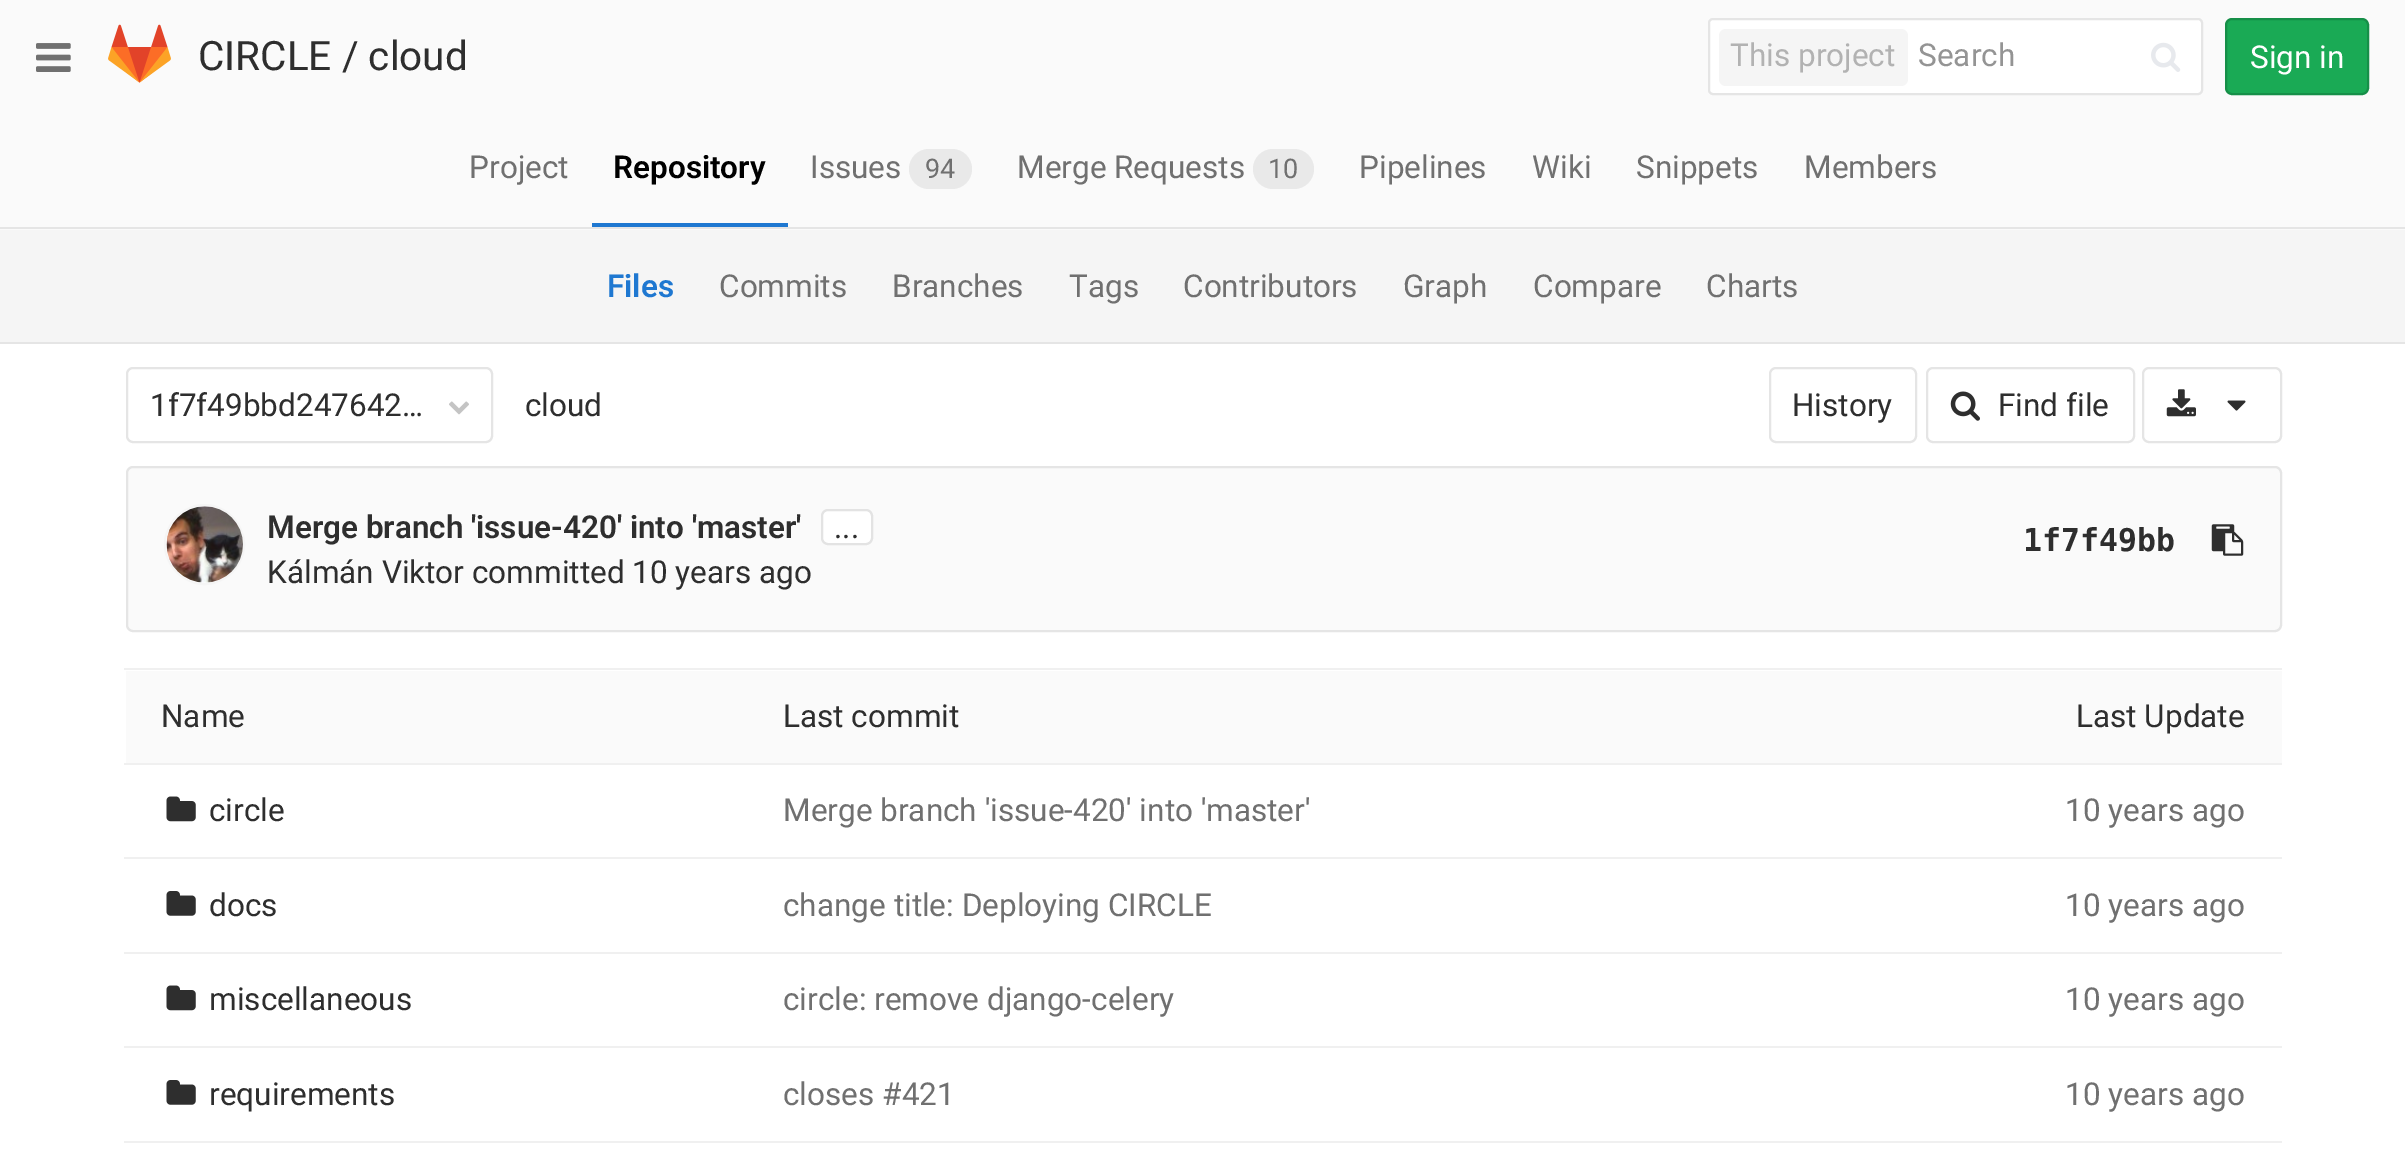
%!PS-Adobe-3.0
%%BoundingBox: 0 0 2405 1164
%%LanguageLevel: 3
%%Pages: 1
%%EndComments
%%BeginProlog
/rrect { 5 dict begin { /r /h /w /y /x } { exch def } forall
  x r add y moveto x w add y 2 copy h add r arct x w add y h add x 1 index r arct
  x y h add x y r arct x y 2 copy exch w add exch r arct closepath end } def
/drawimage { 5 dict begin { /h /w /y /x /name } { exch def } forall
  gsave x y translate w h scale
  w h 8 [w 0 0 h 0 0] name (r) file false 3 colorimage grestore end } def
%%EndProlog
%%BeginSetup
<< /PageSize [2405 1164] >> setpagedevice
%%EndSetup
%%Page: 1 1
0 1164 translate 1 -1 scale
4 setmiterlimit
1 setgray
0 0 2405 1164 rectfill
0.98 setgray
0 0 2405 230 rectfill
(images/1.raw) 36 43 35 29 drawimage
(images/2.raw) 108 24 63 59 drawimage
1 setgray
1709 19 493 75 4 rrect gsave fill grestore
0.898 setgray
2 setlinewidth
stroke
0.961 setgray
1719 29 189 57 7 rrect fill
(images/3.raw) 2151 42 30 30 drawimage
0.102 0.667 0.333 setrgbcolor
2226 19 142 75 6 rrect gsave fill grestore
0.086 0.561 0.282 setrgbcolor
stroke
0.898 setgray
0 227 2405 2 rectfill
0.122 0.471 0.82 setrgbcolor
592 223 196 4 rectfill
0.914 setgray
909 149 63 40 20 rrect fill
1253 149 61 40 20 rrect fill
0.961 setgray
0 230 2405 112 rectfill
0.898 setgray
0 342 2405 2 rectfill
127 368 365 74 6 rrect stroke
(images/4.raw) 449 401 20 14 drawimage
1770 368 146 74 6 rrect stroke
1927 368 207 74 6 rrect stroke
(images/5.raw) 1950 391 30 30 drawimage
2143 368 138 74 6 rrect stroke
(images/6.raw) 2166 389 30 28 drawimage
(images/7.raw) 2227 400 19 11 drawimage
0.98 setgray
127 467 2154 164 6 rrect gsave fill grestore
0.898 setgray
stroke
0.992 setgray
newpath 204.5 544.5 39.5 0 360 arc closepath gsave fill grestore
0.961 setgray
stroke
(images/8.raw) 166 506 77 77 drawimage
1 setgray
822 510 50 34 6 rrect gsave fill grestore
0.89 setgray
stroke
(images/9.raw) 2211 524 33 32 drawimage
0.941 setgray
124 668 2158 2 rectfill
0.98 setgray
126 671 2156 92 rectfill
0.941 setgray
124 763 2158 2 rectfill
(images/10.raw) 166 796 30 26 drawimage
124 857 2158 2 rectfill
(images/11.raw) 166 891 30 25 drawimage
124 952 2158 2 rectfill
(images/10.raw) 166 985 30 26 drawimage
124 1046 2158 2 rectfill
(images/11.raw) 166 1080 30 25 drawimage
124 1141 2158 2 rectfill
/Roboto-Regular [40.5 0 0 -40.5 0 0] selectfont
0.18 setgray
198 70 moveto (CIRCLE / cloud) show
/Roboto-Regular [31.5 0 0 -31.5 0 0] selectfont
0.698 setgray
1730 66 moveto (This project) show
0.58 setgray
1918 66 moveto (Search) show
1 setgray
2250 68 moveto (Sign in) show
0.439 setgray
469 178 moveto (Project) show
/Roboto-SemiBold [31.5 0 0 -31.5 0 0] selectfont
0 setgray
613 178 moveto (Repository) show
/Roboto-Regular [31.5 0 0 -31.5 0 0] selectfont
0.439 setgray
810 178 moveto (Issues) show
/Roboto-Regular [27 0 0 -27 0 0] selectfont
925 178 moveto (94) show
/Roboto-Regular [31.5 0 0 -31.5 0 0] selectfont
1017 178 moveto (Merge Requests) show
/Roboto-Regular [27 0 0 -27 0 0] selectfont
1268 178 moveto (10) show
/Roboto-Regular [31.5 0 0 -31.5 0 0] selectfont
1359 178 moveto (Pipelines) show
1532 178 moveto (Wiki) show
1636 178 moveto (Snippets) show
1804 178 moveto (Members) show
/Roboto-SemiBold [31.5 0 0 -31.5 0 0] selectfont
0.122 0.471 0.82 setrgbcolor
607 297 moveto (Files) show
/Roboto-Regular [31.5 0 0 -31.5 0 0] selectfont
0.439 setgray
719 297 moveto (Commits) show
892 297 moveto (Branches) show
1069 297 moveto (Tags) show
1183 297 moveto (Contributors) show
1403 297 moveto (Graph) show
1533 297 moveto (Compare) show
1706 297 moveto (Charts) show
0.18 setgray
150 416 moveto (1f7f49bbd247642…) show
525 416 moveto (cloud) show
1792 416 moveto (History) show
1998 416 moveto (Find file) show
/Roboto-SemiBold [31.5 0 0 -31.5 0 0] selectfont
267 538 moveto (Merge branch 'issue-420' into 'master') show
/Roboto-Regular [31.5 0 0 -31.5 0 0] selectfont
834 538 moveto (...) show
267 583 moveto (Kálmán Viktor committed 10 years ago) show
/DejaVuSansMono-Bold [31.5 0 0 -31.5 0 0] selectfont
2023 551 moveto (1f7f49bb) show
/Roboto-Regular [31.5 0 0 -31.5 0 0] selectfont
161 727 moveto (Name) show
783 727 moveto (Last commit) show
2076 727 moveto (Last Update) show
209 821 moveto (circle) show
0.439 setgray
783 821 moveto (Merge branch 'issue-420' into 'master') show
2065 821 moveto (10 years ago) show
0.18 setgray
209 916 moveto (docs) show
0.439 setgray
783 916 moveto (change title: Deploying CIRCLE) show
2065 916 moveto (10 years ago) show
0.18 setgray
209 1010 moveto (miscellaneous) show
0.439 setgray
783 1010 moveto (circle: remove django-celery) show
2065 1010 moveto (10 years ago) show
0.18 setgray
209 1105 moveto (requirements) show
0.439 setgray
783 1105 moveto (closes #421) show
2065 1105 moveto (10 years ago) show
showpage
%%EOF
